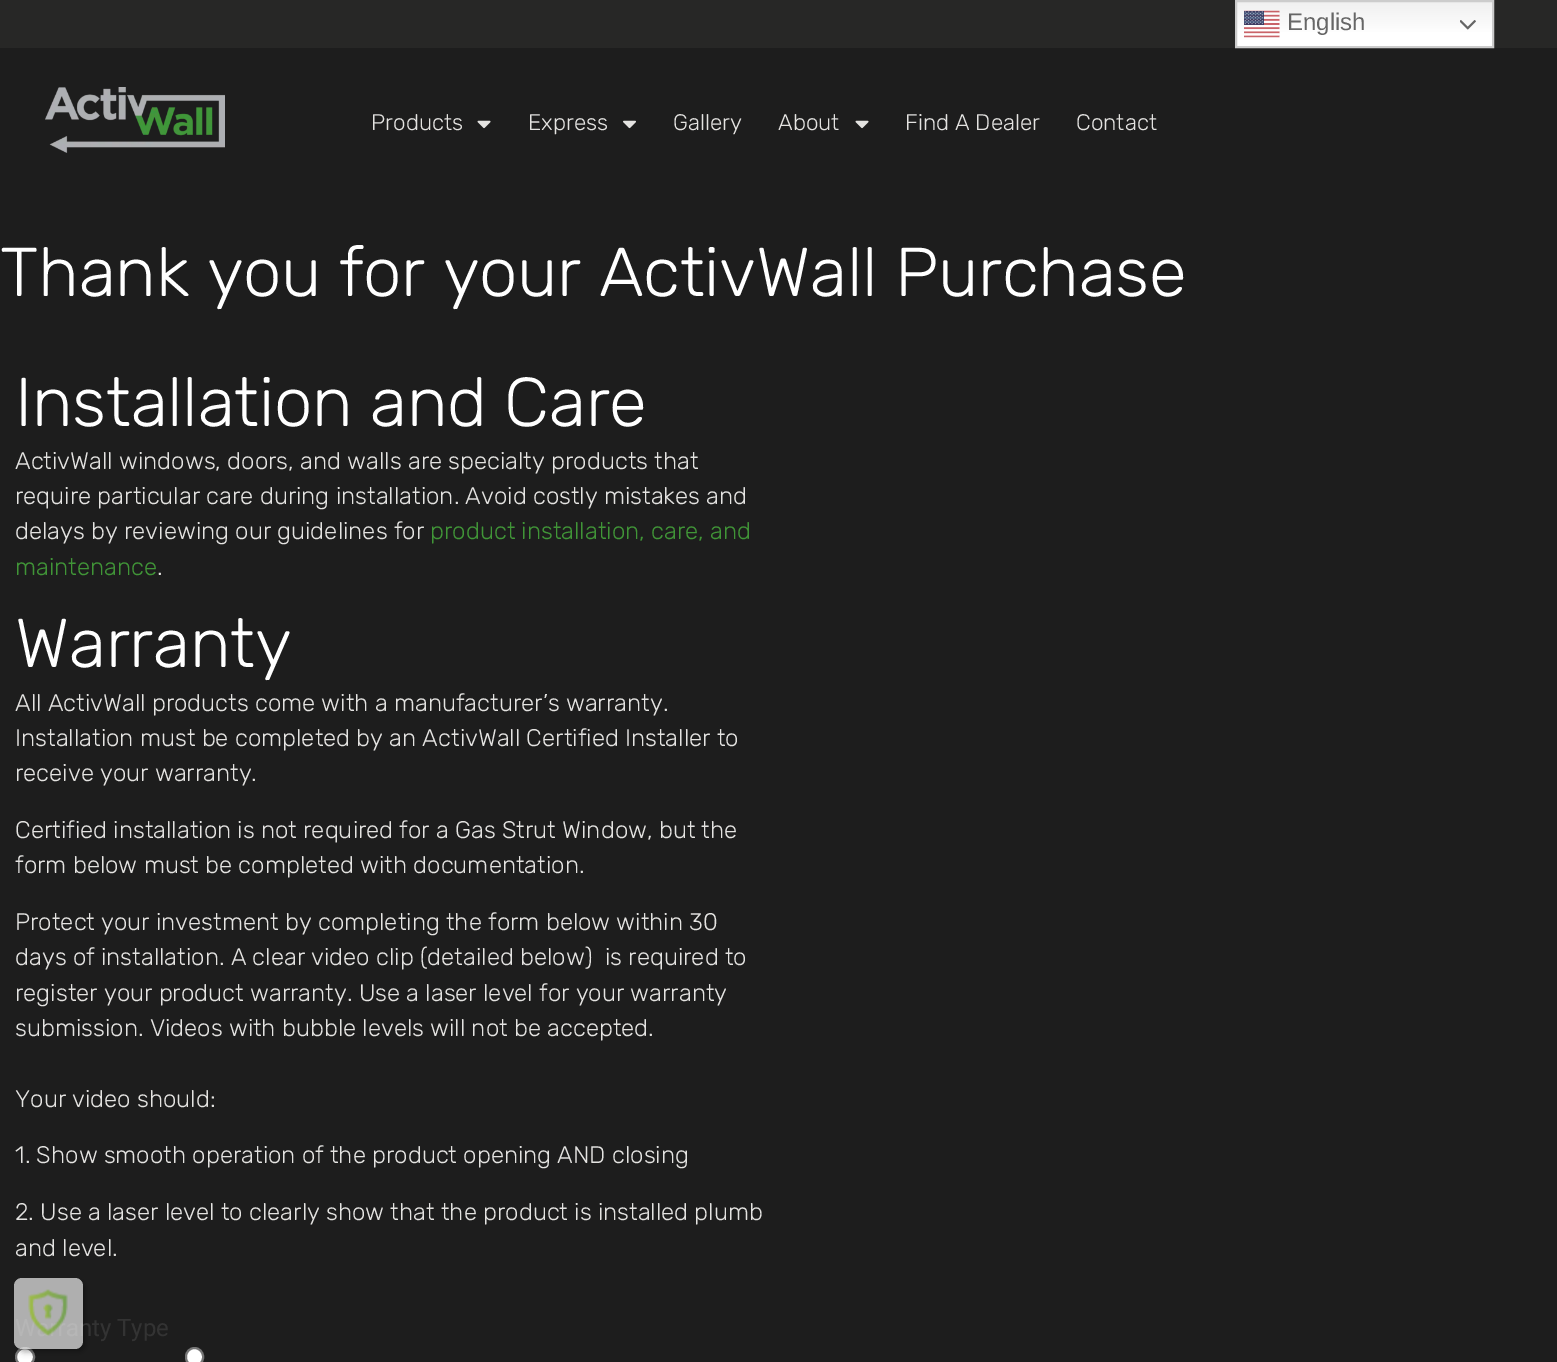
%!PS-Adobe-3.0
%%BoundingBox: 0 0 1557 1362
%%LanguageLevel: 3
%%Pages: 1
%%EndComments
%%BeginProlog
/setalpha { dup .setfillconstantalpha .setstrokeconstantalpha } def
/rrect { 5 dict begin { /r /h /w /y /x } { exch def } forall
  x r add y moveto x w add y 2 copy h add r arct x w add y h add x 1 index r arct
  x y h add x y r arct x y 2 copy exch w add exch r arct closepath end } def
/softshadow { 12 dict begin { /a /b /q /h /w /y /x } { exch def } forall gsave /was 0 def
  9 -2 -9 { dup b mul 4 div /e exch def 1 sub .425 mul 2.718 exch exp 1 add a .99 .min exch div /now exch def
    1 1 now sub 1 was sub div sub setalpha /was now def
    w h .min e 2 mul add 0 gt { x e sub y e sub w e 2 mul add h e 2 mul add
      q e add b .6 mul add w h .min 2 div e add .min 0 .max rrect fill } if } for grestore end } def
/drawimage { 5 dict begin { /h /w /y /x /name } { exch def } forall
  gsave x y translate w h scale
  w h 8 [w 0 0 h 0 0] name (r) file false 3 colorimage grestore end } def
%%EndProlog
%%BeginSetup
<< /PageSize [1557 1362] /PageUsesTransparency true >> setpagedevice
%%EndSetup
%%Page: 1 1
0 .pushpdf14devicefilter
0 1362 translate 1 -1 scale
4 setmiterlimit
0.114 setgray
0 0 1557 1362 rectfill
0.153 0.153 0.149 setrgbcolor
0 0 1557 48 rectfill
gsave newpath 1237 2 moveto 1492 2 lineto 1492 46 lineto 1237 46 lineto closepath clip newpath
<< /ShadingType 2 /ColorSpace /DeviceRGB /Coords [1364 0 1364 48] /Extend [true true] /Function << /FunctionType 3 /Domain [0 1] /Functions [<< /FunctionType 2 /Domain [0 1] /C0 [0.937 0.937 0.937] /C1 [1 1 1] /N 1 >> << /FunctionType 2 /Domain [0 1] /C0 [1 1 1] /C1 [1 1 1] /N 1 >>] /Bounds [0.7] /Encode [0 1 0 1] >> >> shfill grestore
0.8 setgray
2 setlinewidth
1236 1 257 46 rectstroke
(images/1.raw) 1244 10 36 28 drawimage
(images/2.raw) 1460 20 16 10 drawimage
(images/3.raw) 45 87 180 66 drawimage
(images/4.raw) 477 120 14 9 drawimage
(images/5.raw) 623 120 13 9 drawimage
(images/4.raw) 855 120 14 9 drawimage
1 setgray
newpath 25 1357 9 0 360 arc closepath gsave fill grestore
0.463 setgray
stroke
1 setgray
186 1348 17 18 8.5 rrect gsave fill grestore
0.463 setgray
stroke
gsave
newpath 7 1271 moveto 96 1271 lineto 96 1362 lineto 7 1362 lineto closepath 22 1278 moveto 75 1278 lineto 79.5 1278 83 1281.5 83 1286 curveto 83 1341 lineto 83 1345.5 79.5 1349 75 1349 curveto 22 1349 lineto 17.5 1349 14 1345.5 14 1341 curveto 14 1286 lineto 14 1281.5 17.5 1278 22 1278 curveto closepath eoclip newpath
0 setgray
17 1281 69 71 8 3 0.33 softshadow
grestore
/LiberationSans-Regular [24 0 0 -24 0 0] selectfont
0.4 setgray
1287 30 moveto (English) show
/Rubik-Light [22.5 0 0 -22.5 0 0] selectfont
0.894 0.89 0.882 setrgbcolor
371 130 moveto (Products) show
528 130 moveto (Express) show
673 130 moveto (Gallery) show
778 130 moveto (About) show
905 130 moveto (Find A Dealer) show
1076 130 moveto (Contact) show
/Rubik-Light [69 0 0 -69 0 0] selectfont
1 setgray
0 296 moveto -0.3 0 (Thank you for your ActivWall Purchase) ashow
15 426 moveto -0.3 0 (Installation and Care) ashow
/Rubik-Light [24 0 0 -24 0 0] selectfont
0.894 0.89 0.882 setrgbcolor
15 469 moveto (ActivWall windows, doors, and walls are specialty products that) show
15 504 moveto (require particular care during installation. Avoid costly mistakes and) show
15 539 moveto (delays by reviewing our guidelines for) show
0.251 0.584 0.216 setrgbcolor
430 539 moveto (product installation, care, and) show
15 575 moveto (maintenance) show
0.894 0.89 0.882 setrgbcolor
157 575 moveto (.) show
/Rubik-Light [69 0 0 -69 0 0] selectfont
1 setgray
15 667 moveto -0.3 0 (Warranty) ashow
/Rubik-Light [24 0 0 -24 0 0] selectfont
0.894 0.89 0.882 setrgbcolor
15 711 moveto (All ActivWall products come with a manufacturer’s warranty.) show
15 746 moveto (Installation must be completed by an ActivWall Certified Installer to) show
15 781 moveto (receive your warranty.) show
15 838 moveto (Certified installation is not required for a Gas Strut Window, but the) show
15 873 moveto (form below must be completed with documentation.) show
15 930 moveto (Protect your investment by completing the form below within 30) show
15 965 moveto (days of installation. A clear video clip \(detailed below\)) show
605 965 moveto (is required to) show
15 1001 moveto (register your product warranty. Use a laser level for your warranty) show
15 1036 moveto (submission. Videos with bubble levels will not be accepted.) show
15 1107 moveto (Your video should:) show
15 1163 moveto (1. Show smooth operation of the product opening AND closing) show
15 1220 moveto (2. Use a laser level to clearly show that the product is installed plumb) show
15 1256 moveto (and level.) show
/Roboto-Regular [24 0 0 -24 0 0] selectfont
0.2 setgray
15 1336 moveto (Warranty Type) show
0.69 setalpha
0.945 setgray
14 1278 69 71 8 rrect fill
1 setalpha
(images/6.raw) 28 1289 40 47 drawimage
.poppdf14devicefilter showpage
%%EOF
